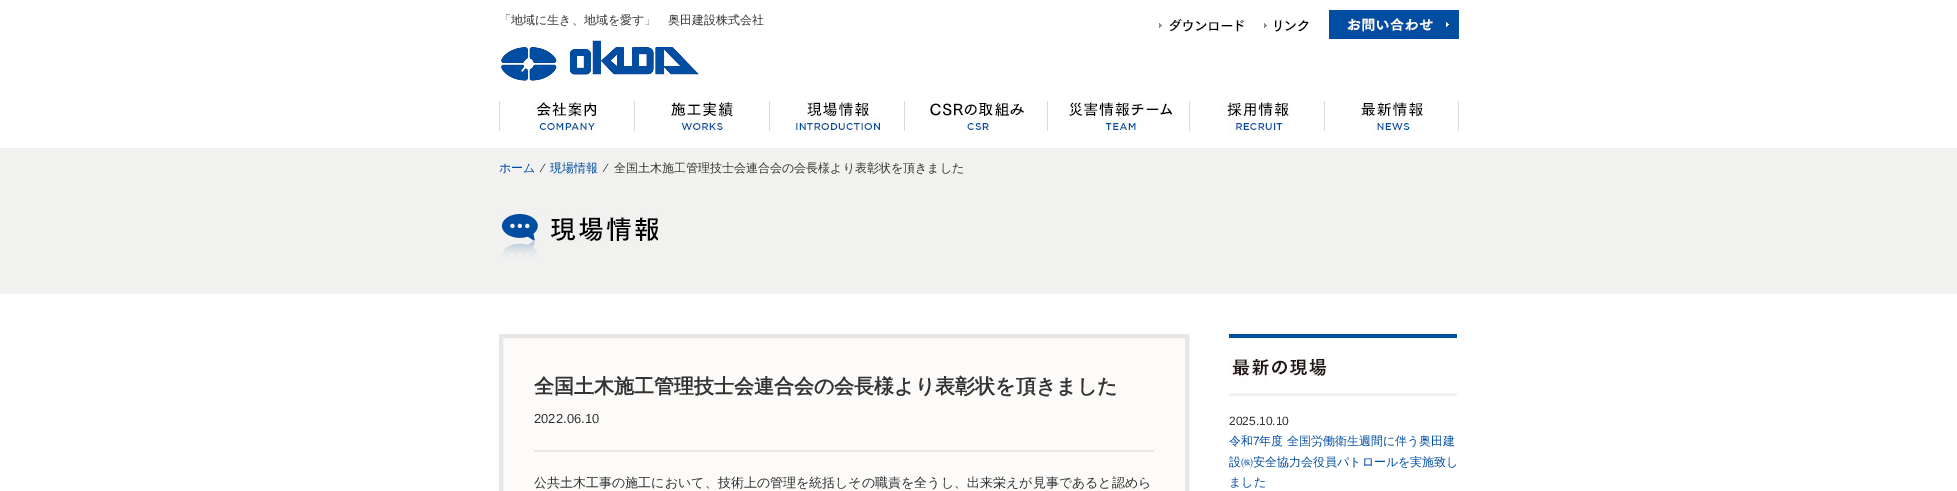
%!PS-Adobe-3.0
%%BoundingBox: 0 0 1957 491
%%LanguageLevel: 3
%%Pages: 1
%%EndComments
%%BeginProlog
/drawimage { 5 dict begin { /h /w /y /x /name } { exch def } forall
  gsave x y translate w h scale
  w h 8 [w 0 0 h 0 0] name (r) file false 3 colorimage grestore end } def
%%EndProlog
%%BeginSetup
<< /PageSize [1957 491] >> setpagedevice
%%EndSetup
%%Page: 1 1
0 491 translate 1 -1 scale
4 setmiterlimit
1 setgray
0 0 1957 491 rectfill
(images/1.raw) 1159 18 85 16 drawimage
(images/2.raw) 1264 20 45 13 drawimage
(images/3.raw) 1329 10 130 29 drawimage
(images/4.raw) 501 40 198 45 drawimage
(images/5.raw) 499 101 103 32 drawimage
(images/6.raw) 634 101 104 32 drawimage
(images/7.raw) 769 101 112 32 drawimage
(images/8.raw) 904 101 120 32 drawimage
(images/9.raw) 1047 101 128 32 drawimage
(images/10.raw) 1189 101 103 32 drawimage
(images/11.raw) 1324 101 135 32 drawimage
0.945 0.945 0.937 setrgbcolor
0 148 1957 146 rectfill
(images/12.raw) 499 214 159 45 drawimage
0.988 0.984 0.976 setrgbcolor
newpath 501 336 moveto 1187 336 lineto 1187 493 lineto 501 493 lineto closepath gsave fill grestore
0.91 0.906 0.898 setrgbcolor
4 setlinewidth
stroke
534 450 620 2 rectfill
(images/13.raw) 1229 334 228 62 drawimage
/WenQuanYiZenHei-Medium [12 0 0 -12 0 0] selectfont
0.2 setgray
499 24 moveto (「地域に生き、地域を愛す」　奥田建設株式会社) show
0 0.302 0.631 setrgbcolor
499 172 moveto (ホーム) show
/LiberationSans-Regular [12 0 0 -12 0 0] selectfont
0.2 setgray
542 172 moveto (⁄) show
/WenQuanYiZenHei-Medium [12 0 0 -12 0 0] selectfont
0 0.302 0.631 setrgbcolor
550 172 moveto (現場情報) show
/LiberationSans-Regular [12 0 0 -12 0 0] selectfont
0.2 setgray
605 172 moveto (⁄) show
/WenQuanYiZenHei-Medium [12 0 0 -12 0 0] selectfont
614 172 moveto (全国土木施工管理技士会連合会の会長様より表彰状を頂きました) show
/WenQuanYiZenHei-Bold [20 0 0 -20 0 0] selectfont
534 393 moveto (全国土木施工管理技士会連合会の会長様より表彰状を頂きました) show
/LiberationSans-Regular [13 0 0 -13 0 0] selectfont
534 423 moveto (2022.06.10) show
/WenQuanYiZenHei-Medium [13 0 0 -13 0 0] selectfont
534 487 moveto (公共土木工事の施工において、技術上の管理を統括しその職責を全うし、出来栄えが見事であると認めら) show
/LiberationSans-Regular [12 0 0 -12 0 0] selectfont
1229 425 moveto (2025.10.10) show
/WenQuanYiZenHei-Medium [12 0 0 -12 0 0] selectfont
0 0.302 0.631 setrgbcolor
1229 445 moveto (令和) show
/LiberationSans-Regular [12 0 0 -12 0 0] selectfont
1253 445 moveto (7) show
/WenQuanYiZenHei-Medium [12 0 0 -12 0 0] selectfont
1259 445 moveto (年度 全国労働衛生週間に伴う奥田建) show
1229 466 moveto (設㈱安全協力会役員パトロールを実施致し) show
1229 486 moveto (ました) show
showpage
%%EOF
